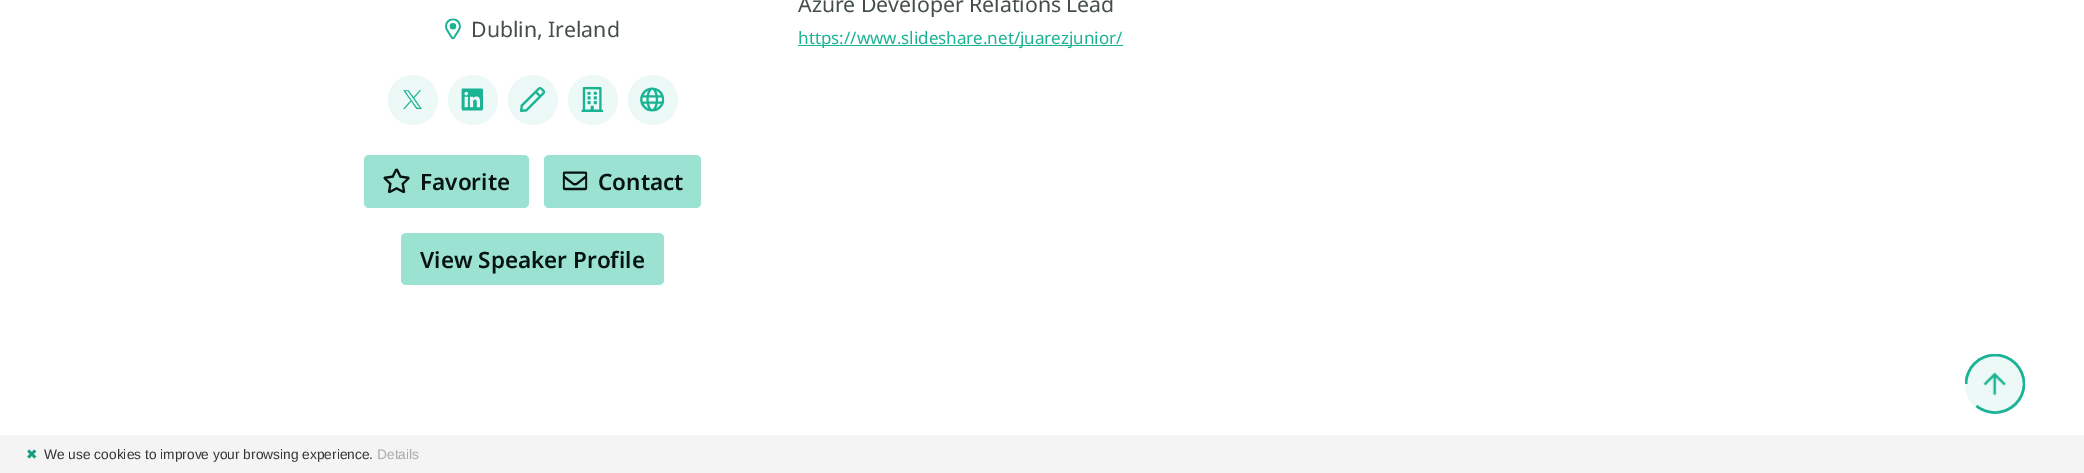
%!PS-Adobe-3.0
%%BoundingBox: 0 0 2084 473
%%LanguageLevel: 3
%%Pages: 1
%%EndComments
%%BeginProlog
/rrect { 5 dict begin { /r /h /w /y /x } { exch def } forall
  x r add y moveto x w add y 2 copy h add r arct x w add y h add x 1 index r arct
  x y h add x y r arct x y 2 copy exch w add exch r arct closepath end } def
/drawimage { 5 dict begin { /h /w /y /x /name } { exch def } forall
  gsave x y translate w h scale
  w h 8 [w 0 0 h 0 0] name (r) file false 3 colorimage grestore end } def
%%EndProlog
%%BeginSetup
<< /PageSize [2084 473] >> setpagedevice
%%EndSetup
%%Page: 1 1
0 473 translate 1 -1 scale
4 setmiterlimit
1 setgray
0 0 2084 473 rectfill
(images/1.raw) 445 18 16 22 drawimage
0.925 0.976 0.965 setrgbcolor
newpath 413 100 25 0 360 arc closepath fill
(images/2.raw) 403 90 19 19 drawimage
newpath 473 100 25 0 360 arc closepath fill
(images/3.raw) 461 88 22 23 drawimage
newpath 533 100 25 0 360 arc closepath fill
(images/4.raw) 520 87 25 25 drawimage
newpath 593 100 25 0 360 arc closepath fill
(images/5.raw) 581 87 22 25 drawimage
newpath 653 100 25 0 360 arc closepath fill
(images/6.raw) 640 87 25 25 drawimage
0.612 0.886 0.827 setrgbcolor
364 155 165 53 5 rrect fill
(images/7.raw) 383 168 27 25 drawimage
544 155 157 53 5 rrect fill
(images/8.raw) 562 171 26 20 drawimage
401 233 263 52 5 rrect fill
0.102 0.702 0.58 setrgbcolor
798 45 325 1 rectfill
0.925 0.976 0.965 setrgbcolor
newpath 1995 384 30 0 360 arc closepath fill
(images/9.raw) 1983 372 23 24 drawimage
gsave
newpath 1965 384 moveto 1965 367 1978.5 354 1995 354 curveto 2011.5 354 2025 367 2025 384 curveto 2025 400.5 2011.5 414 1995 414 curveto 1978.5 414 1965 400.5 1965 384 curveto closepath clip newpath
0.102 0.702 0.58 setrgbcolor
2.5 setlinewidth
newpath 1966 384 moveto 1966 368 1979 355 1995 355 curveto 2011 355 2024 368 2024 384 curveto 2024 399.5 2011 412.5 1995 412.5 curveto 1988 412.5 1981.5 410 1976.5 406 curveto stroke
grestore
0.957 setgray
0 435 2084 38 rectfill
/NotoSans-Regular [21.25 0 0 -21.25 0 0] selectfont
0.267 0.306 0.302 setrgbcolor
471 37 moveto (Dublin, Ireland) show
/NotoSans-SemiBold [22.5 0 0 -22.5 0 0] selectfont
0.024 0.075 0.067 setrgbcolor
420 190 moveto (Favorite) show
598 190 moveto (Contact) show
420 268 moveto (View Speaker Profile) show
/NotoSans-Regular [21.25 0 0 -21.25 0 0] selectfont
0.267 0.306 0.302 setrgbcolor
798 12 moveto (Azure Developer Relations Lead) show
/NotoSans-Regular [17 0 0 -17 0 0] selectfont
0.102 0.702 0.58 setrgbcolor
798 44 moveto (https://www.slideshare.net/juarezjunior/) show
/DejaVuSans-Regular [13.75 0 0 -13.75 0 0] selectfont
0.09 0.616 0.51 setrgbcolor
26 459 moveto (✖) show
/LiberationSans-Regular [13.75 0 0 -13.75 0 0] selectfont
0.2 setgray
44 459 moveto (We use cookies to improve your browsing experience.) show
0.667 setgray
377 459 moveto (Details) show
showpage
%%EOF
